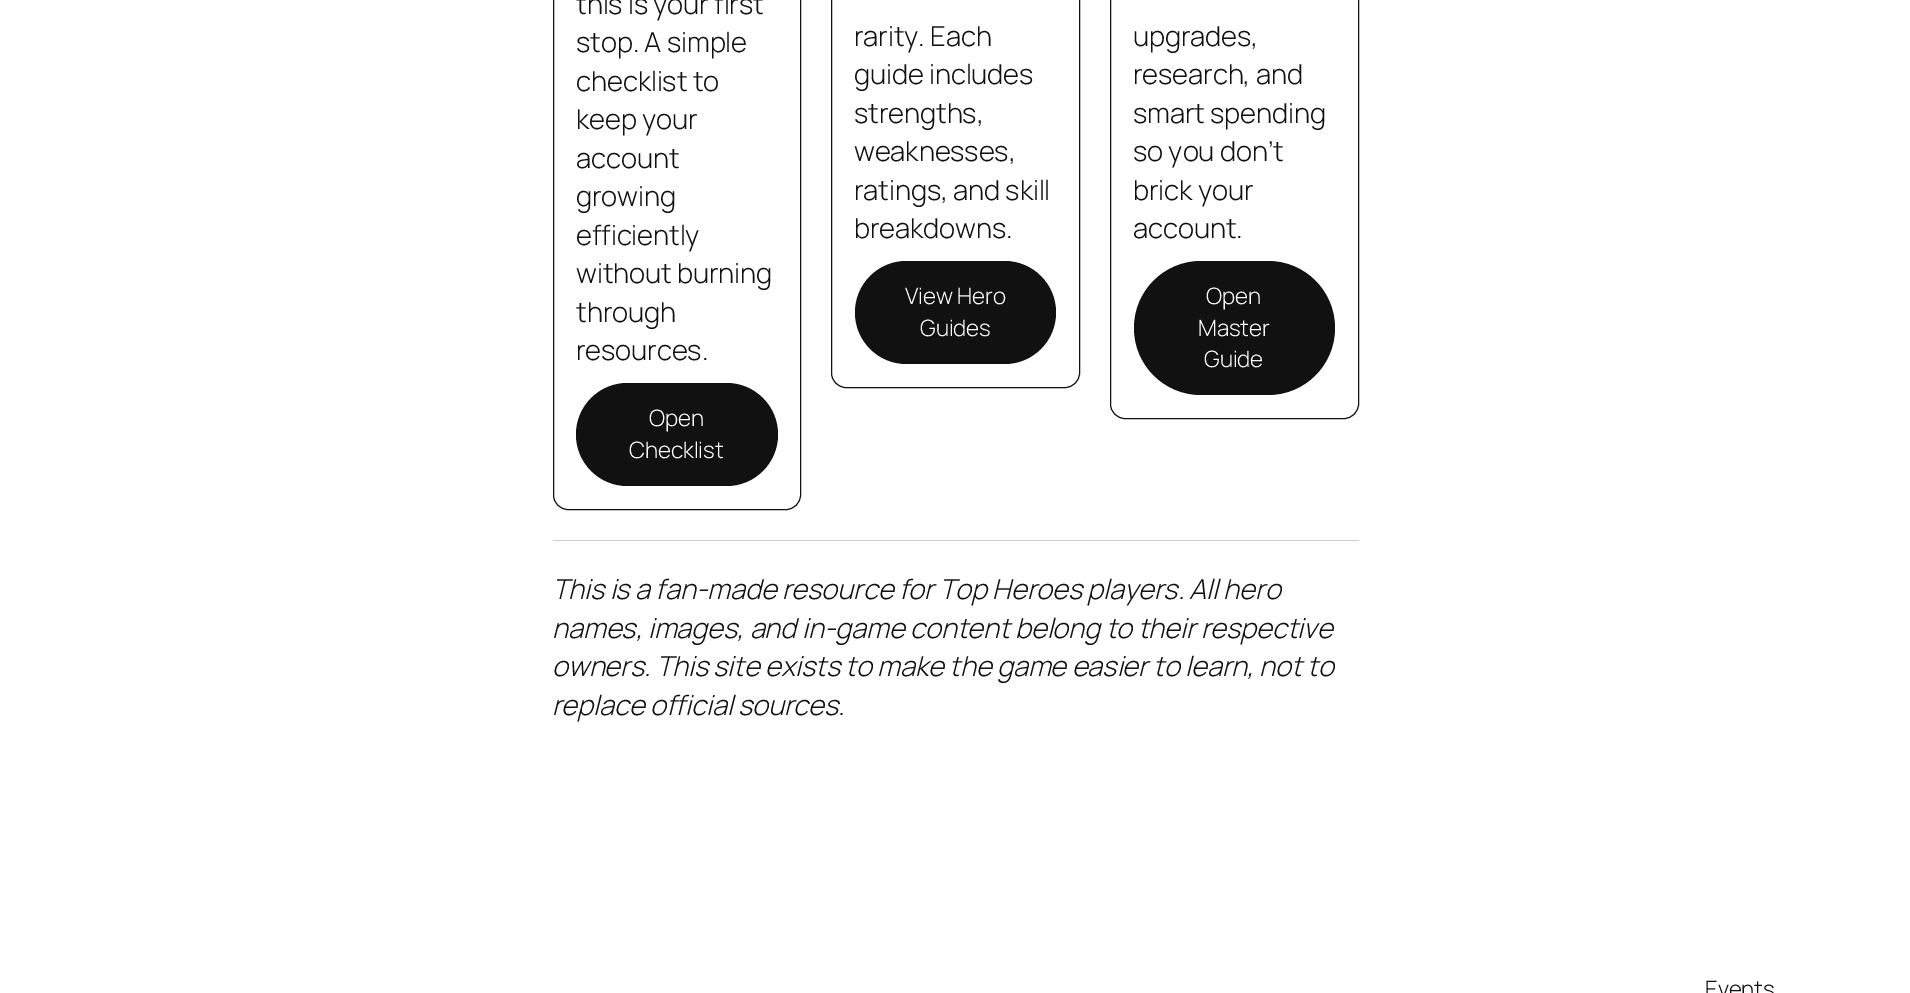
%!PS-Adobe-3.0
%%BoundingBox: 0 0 1910 993
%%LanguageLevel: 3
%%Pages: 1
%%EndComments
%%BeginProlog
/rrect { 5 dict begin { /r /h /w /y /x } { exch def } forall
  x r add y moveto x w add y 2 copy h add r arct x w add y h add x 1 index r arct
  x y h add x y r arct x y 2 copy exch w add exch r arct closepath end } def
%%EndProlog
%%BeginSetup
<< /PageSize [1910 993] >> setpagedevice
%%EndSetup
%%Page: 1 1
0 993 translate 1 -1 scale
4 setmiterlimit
1 setgray
0 0 1910 993 rectfill
0.067 setgray
553.5 -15.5 247 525 14.5 rrect stroke
576 383 202 103 51.5 rrect fill
831.5 -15.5 248 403 14.5 rrect stroke
855 261 201 103 51.5 rrect fill
1110.5 -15.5 248 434 14.5 rrect stroke
1134 261 201 134 67 rrect fill
0.812 setgray
553 540 806 1 rectfill
/Manrope-Light [27.5 0 0 -27.5 0 0] selectfont
0.067 setgray
576 14 moveto -0.12 0 (this is your first) ashow
576 52 moveto -0.12 0 (stop. A simple) ashow
576 91 moveto -0.12 0 (checklist to) ashow
576 129 moveto -0.12 0 (keep your) ashow
576 168 moveto -0.12 0 (account) ashow
576 206 moveto -0.12 0 (growing) ashow
576 245 moveto -0.12 0 (efficiently) ashow
576 283 moveto -0.12 0 (without burning) ashow
576 322 moveto -0.12 0 (through) ashow
576 360 moveto -0.12 0 (resources.) ashow
/Manrope-Light [22.5 0 0 -22.5 0 0] selectfont
1 setgray
649 426 moveto -0.12 0 (Open) ashow
629 458 moveto -0.12 0 (Checklist) ashow
/Manrope-Light [27.5 0 0 -27.5 0 0] selectfont
0.067 setgray
854 46 moveto -0.12 0 (rarity. Each) ashow
854 84 moveto -0.12 0 (guide includes) ashow
854 123 moveto -0.12 0 (strengths,) ashow
854 161 moveto -0.12 0 (weaknesses,) ashow
854 200 moveto -0.12 0 (ratings, and skill) ashow
854 238 moveto -0.12 0 (breakdowns.) ashow
/Manrope-Light [22.5 0 0 -22.5 0 0] selectfont
1 setgray
905 304 moveto -0.12 0 (View Hero) ashow
920 336 moveto -0.12 0 (Guides) ashow
/Manrope-Light [27.5 0 0 -27.5 0 0] selectfont
0.067 setgray
1133 46 moveto -0.12 0 (upgrades,) ashow
1133 84 moveto -0.12 0 (research, and) ashow
1133 123 moveto -0.12 0 (smart spending) ashow
1133 161 moveto -0.12 0 (so you don’t) ashow
1133 200 moveto -0.12 0 (brick your) ashow
1133 238 moveto -0.12 0 (account.) ashow
/Manrope-Light [22.5 0 0 -22.5 0 0] selectfont
1 setgray
1206 304 moveto -0.12 0 (Open) ashow
1198 336 moveto -0.12 0 (Master) ashow
1204 367 moveto -0.12 0 (Guide) ashow
/Manrope-LightItalic [27.5 0 0 -27.5 0 0] selectfont
0.067 setgray
552 599 moveto -0.12 0 (This is a fan-made resource for Top Heroes players. All hero) ashow
552 638 moveto -0.12 0 (names, images, and in-game content belong to their respective) ashow
552 676 moveto -0.12 0 (owners. This site exists to make the game easier to learn, not to) ashow
552 715 moveto -0.12 0 (replace official sources.) ashow
/Manrope-Light [22.5 0 0 -22.5 0 0] selectfont
1705 997 moveto -0.12 0 (Events) ashow
showpage
%%EOF
